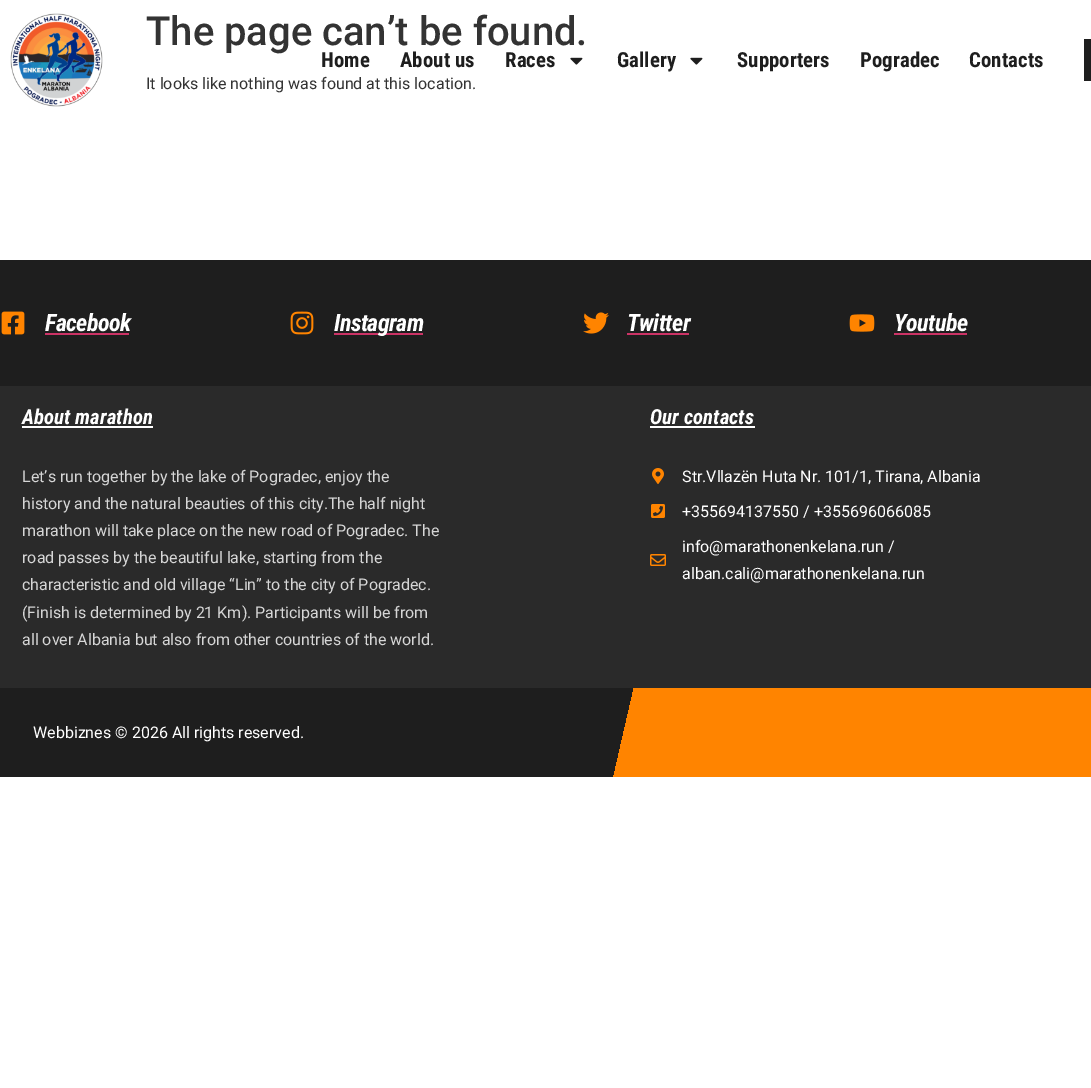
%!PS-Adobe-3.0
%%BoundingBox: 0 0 1091 1088
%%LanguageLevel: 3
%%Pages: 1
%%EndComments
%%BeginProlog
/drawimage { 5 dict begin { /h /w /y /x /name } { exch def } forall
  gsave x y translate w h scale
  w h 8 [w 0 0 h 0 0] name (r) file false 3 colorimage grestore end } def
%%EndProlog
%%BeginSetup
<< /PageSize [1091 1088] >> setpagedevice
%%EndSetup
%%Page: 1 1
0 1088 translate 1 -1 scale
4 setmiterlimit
1 setgray
0 0 1091 1088 rectfill
(images/1.raw) 10 13 93 94 drawimage
(images/2.raw) 570 57 13 8 drawimage
(images/2.raw) 690 57 13 8 drawimage
0.118 setgray
1084 39 7 42 rectfill
0 260 1091 126 rectfill
(images/3.raw) 1 311 24 24 drawimage
0.8 0.2 0.4 setrgbcolor
45 333 84 2 rectfill
(images/4.raw) 290 311 24 24 drawimage
334 333 89 2 rectfill
(images/5.raw) 583 312 26 22 drawimage
627 333 62 2 rectfill
(images/6.raw) 849 314 26 18 drawimage
894 333 73 2 rectfill
0.165 setgray
0 386 1091 302 rectfill
1 setgray
22 426 131 2 rectfill
650 426 105 2 rectfill
(images/7.raw) 652 468 12 16 drawimage
(images/8.raw) 651 504 14 14 drawimage
(images/9.raw) 650 554 16 12 drawimage
gsave newpath 0 688 moveto 1091 688 lineto 1091 777 lineto 0 777 lineto closepath clip newpath
<< /ShadingType 2 /ColorSpace /DeviceRGB /Coords [18 611 1073 854] /Extend [true true] /Function << /FunctionType 3 /Domain [0 1] /Functions [<< /FunctionType 2 /Domain [0 1] /C0 [0.118 0.118 0.118] /C1 [0.118 0.118 0.118] /N 1 >> << /FunctionType 2 /Domain [0 1] /C0 [1 0.518 0] /C1 [1 0.518 0] /N 1 >>] /Bounds [0.57] /Encode [0 1 0 1] >> >> shfill grestore
/Roboto-Medium [40 0 0 -40 0 0] selectfont
0.2 setgray
146 45 moveto (The page can’t be found.) show
/Roboto-Regular [16 0 0 -16 0 0] selectfont
146 89 moveto (It looks like nothing was found at this location.) show
/RobotoCondensed-Bold [20.75 0 0 -20.75 0 0] selectfont
0.118 setgray
321 67 moveto 0.1 0 (Home) ashow
400 67 moveto 0.1 0 (About us) ashow
505 67 moveto 0.1 0 (Races) ashow
617 67 moveto 0.1 0 (Gallery) ashow
737 67 moveto 0.1 0 (Supporters) ashow
860 67 moveto 0.1 0 (Pogradec) ashow
969 67 moveto 0.1 0 (Contacts) ashow
/RobotoCondensed-BoldItalic [24 0 0 -24 0 0] selectfont
1 setgray
45 331 moveto -0.5 0 (Facebook) ashow
334 331 moveto -0.5 0 (Instagram) ashow
627 331 moveto -0.5 0 (Twitter) ashow
894 331 moveto -0.5 0 (Youtube) ashow
/RobotoCondensed-BoldItalic [20.75 0 0 -20.75 0 0] selectfont
22 424 moveto 0.1 0 (About marathon) ashow
/Roboto-Regular [16 0 0 -16 0 0] selectfont
0.839 setgray
22 482 moveto (Let’s run together by the lake of Pogradec, enjoy the) show
22 509 moveto (history and the natural beauties of this city.The half night) show
22 536 moveto (marathon will take place on the new road of Pogradec. The) show
22 563 moveto (road passes by the beautiful lake, starting from the) show
22 590 moveto (characteristic and old village “Lin” to the city of Pogradec.) show
22 618 moveto (\(Finish is determined by 21 Km\). Participants will be from) show
22 645 moveto (all over Albania but also from other countries of the world.) show
/RobotoCondensed-BoldItalic [20.75 0 0 -20.75 0 0] selectfont
1 setgray
650 424 moveto 0.1 0 (Our contacts) ashow
/Roboto-Regular [16 0 0 -16 0 0] selectfont
682 482 moveto (Str.Vllazën Huta Nr. 101/1, Tirana, Albania) show
682 517 moveto (+355694137550 / +355696066085) show
682 552 moveto (info@marathonenkelana.run /) show
682 579 moveto (alban.cali@marathonenkelana.run) show
33 738 moveto (Webbiznes © 2026 All rights reserved.) show
showpage
%%EOF
